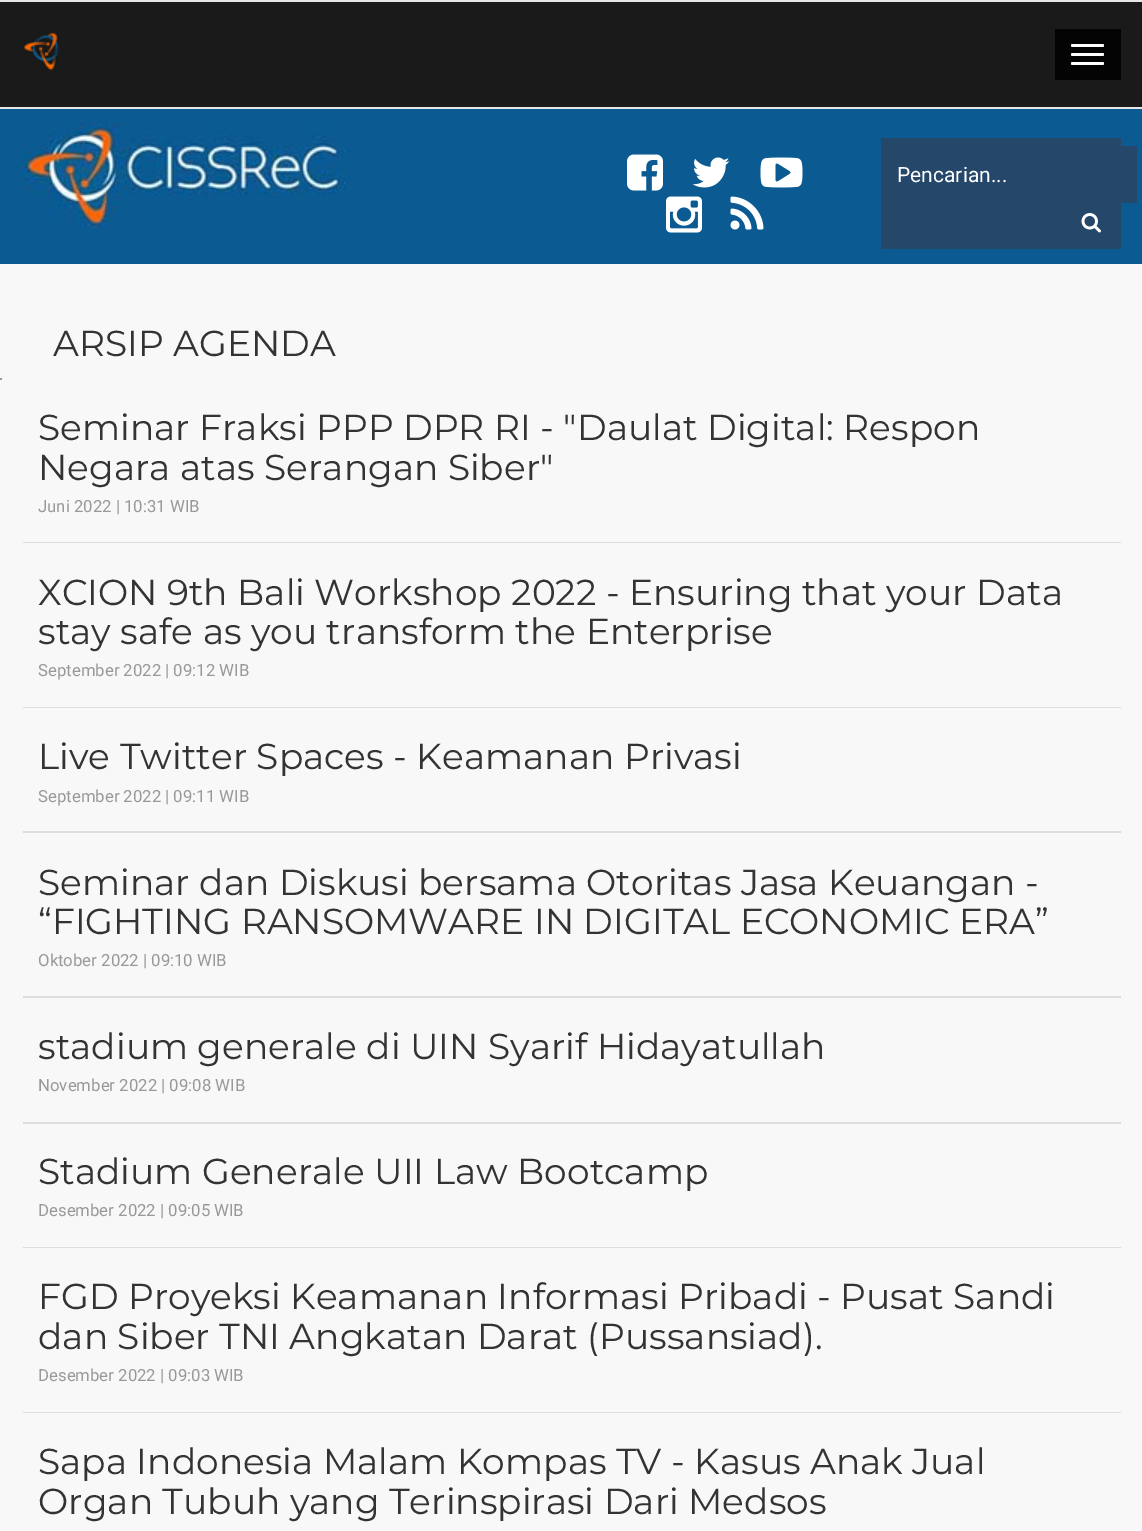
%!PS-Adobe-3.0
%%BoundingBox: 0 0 1142 1531
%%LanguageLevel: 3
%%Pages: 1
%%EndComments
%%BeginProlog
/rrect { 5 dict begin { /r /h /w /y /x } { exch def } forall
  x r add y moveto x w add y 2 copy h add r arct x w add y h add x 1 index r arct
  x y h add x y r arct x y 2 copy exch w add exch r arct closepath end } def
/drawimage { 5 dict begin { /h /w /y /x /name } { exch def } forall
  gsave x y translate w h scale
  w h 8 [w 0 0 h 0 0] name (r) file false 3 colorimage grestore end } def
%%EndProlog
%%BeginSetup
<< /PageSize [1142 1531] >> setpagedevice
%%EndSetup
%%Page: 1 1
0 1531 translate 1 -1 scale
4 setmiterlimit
0.043 0.353 0.569 setrgbcolor
0 0 1142 1531 rectfill
0.102 setgray
0 2 1142 105 rectfill
0.906 setgray
0 0 1142 2 rectfill
0 107 1142 2 rectfill
(images/1.raw) 22 31 37 40 drawimage
0.016 setgray
1055 29 66 51 rectfill
1 setgray
1071 44 33 3 1.5 rrect fill
1071 53 33 3 1.5 rrect fill
1071 62 33 3 1.5 rrect fill
(images/2.raw) 22 123 323 105 drawimage
(images/3.raw) 627 154 36 37 drawimage
(images/4.raw) 692 157 38 31 drawimage
(images/5.raw) 760 157 43 31 drawimage
(images/6.raw) 666 196 36 37 drawimage
(images/7.raw) 730 196 34 34 drawimage
0.141 0.278 0.416 setrgbcolor
881 138 240 111 rectfill
1121 146 16 57 rectfill
(images/8.raw) 1081 213 20 20 drawimage
0.973 setgray
0 264 1142 1267 rectfill
0.6 setgray
0 378 2 2 rectfill
0.863 0.867 0.867 setrgbcolor
23 542 1098 1 rectfill
23 707 1098 1 rectfill
23 831 1098 2 rectfill
23 996 1098 2 rectfill
23 1122 1098 2 rectfill
23 1247 1098 1 rectfill
23 1412 1098 1 rectfill
/Roboto-Regular [21 0 0 -21 0 0] selectfont
1 setgray
897 182 moveto (Pencarian...) show
/Montserrat-Regular [36 0 0 -36 0 0] selectfont
0.2 setgray
53 356 moveto (ARSIP AGENDA) show
38 440 moveto (Seminar Fraksi PPP DPR RI - "Daulat Digital: Respon) show
38 480 moveto (Negara atas Serangan Siber") show
/Roboto-Regular [16.75 0 0 -16.75 0 0] selectfont
0.6 setgray
38 512 moveto (Juni 2022 | 10:31 WIB) show
/Montserrat-Regular [36 0 0 -36 0 0] selectfont
0.2 setgray
38 605 moveto (XCION 9th Bali Workshop 2022 - Ensuring that your Data) show
38 644 moveto (stay safe as you transform the Enterprise) show
/Roboto-Regular [16.75 0 0 -16.75 0 0] selectfont
0.6 setgray
38 676 moveto (September 2022 | 09:12 WIB) show
/Montserrat-Regular [36 0 0 -36 0 0] selectfont
0.2 setgray
38 769 moveto (Live Twitter Spaces - Keamanan Privasi) show
/Roboto-Regular [16.75 0 0 -16.75 0 0] selectfont
0.6 setgray
38 802 moveto (September 2022 | 09:11 WIB) show
/Montserrat-Regular [36 0 0 -36 0 0] selectfont
0.2 setgray
38 895 moveto (Seminar dan Diskusi bersama Otoritas Jasa Keuangan -) show
38 934 moveto (“FIGHTING RANSOMWARE IN DIGITAL ECONOMIC ERA”) show
/Roboto-Regular [16.75 0 0 -16.75 0 0] selectfont
0.6 setgray
38 966 moveto (Oktober 2022 | 09:10 WIB) show
/Montserrat-Regular [36 0 0 -36 0 0] selectfont
0.2 setgray
38 1059 moveto (stadium generale di UIN Syarif Hidayatullah) show
/Roboto-Regular [16.75 0 0 -16.75 0 0] selectfont
0.6 setgray
38 1091 moveto (November 2022 | 09:08 WIB) show
/Montserrat-Regular [36 0 0 -36 0 0] selectfont
0.2 setgray
38 1184 moveto (Stadium Generale UII Law Bootcamp) show
/Roboto-Regular [16.75 0 0 -16.75 0 0] selectfont
0.6 setgray
38 1216 moveto (Desember 2022 | 09:05 WIB) show
/Montserrat-Regular [36 0 0 -36 0 0] selectfont
0.2 setgray
38 1309 moveto (FGD Proyeksi Keamanan Informasi Pribadi - Pusat Sandi) show
38 1349 moveto (dan Siber TNI Angkatan Darat \(Pussansiad\).) show
/Roboto-Regular [16.75 0 0 -16.75 0 0] selectfont
0.6 setgray
38 1381 moveto (Desember 2022 | 09:03 WIB) show
/Montserrat-Regular [36 0 0 -36 0 0] selectfont
0.2 setgray
38 1474 moveto (Sapa Indonesia Malam Kompas TV - Kasus Anak Jual) show
38 1514 moveto (Organ Tubuh yang Terinspirasi Dari Medsos) show
showpage
%%EOF
